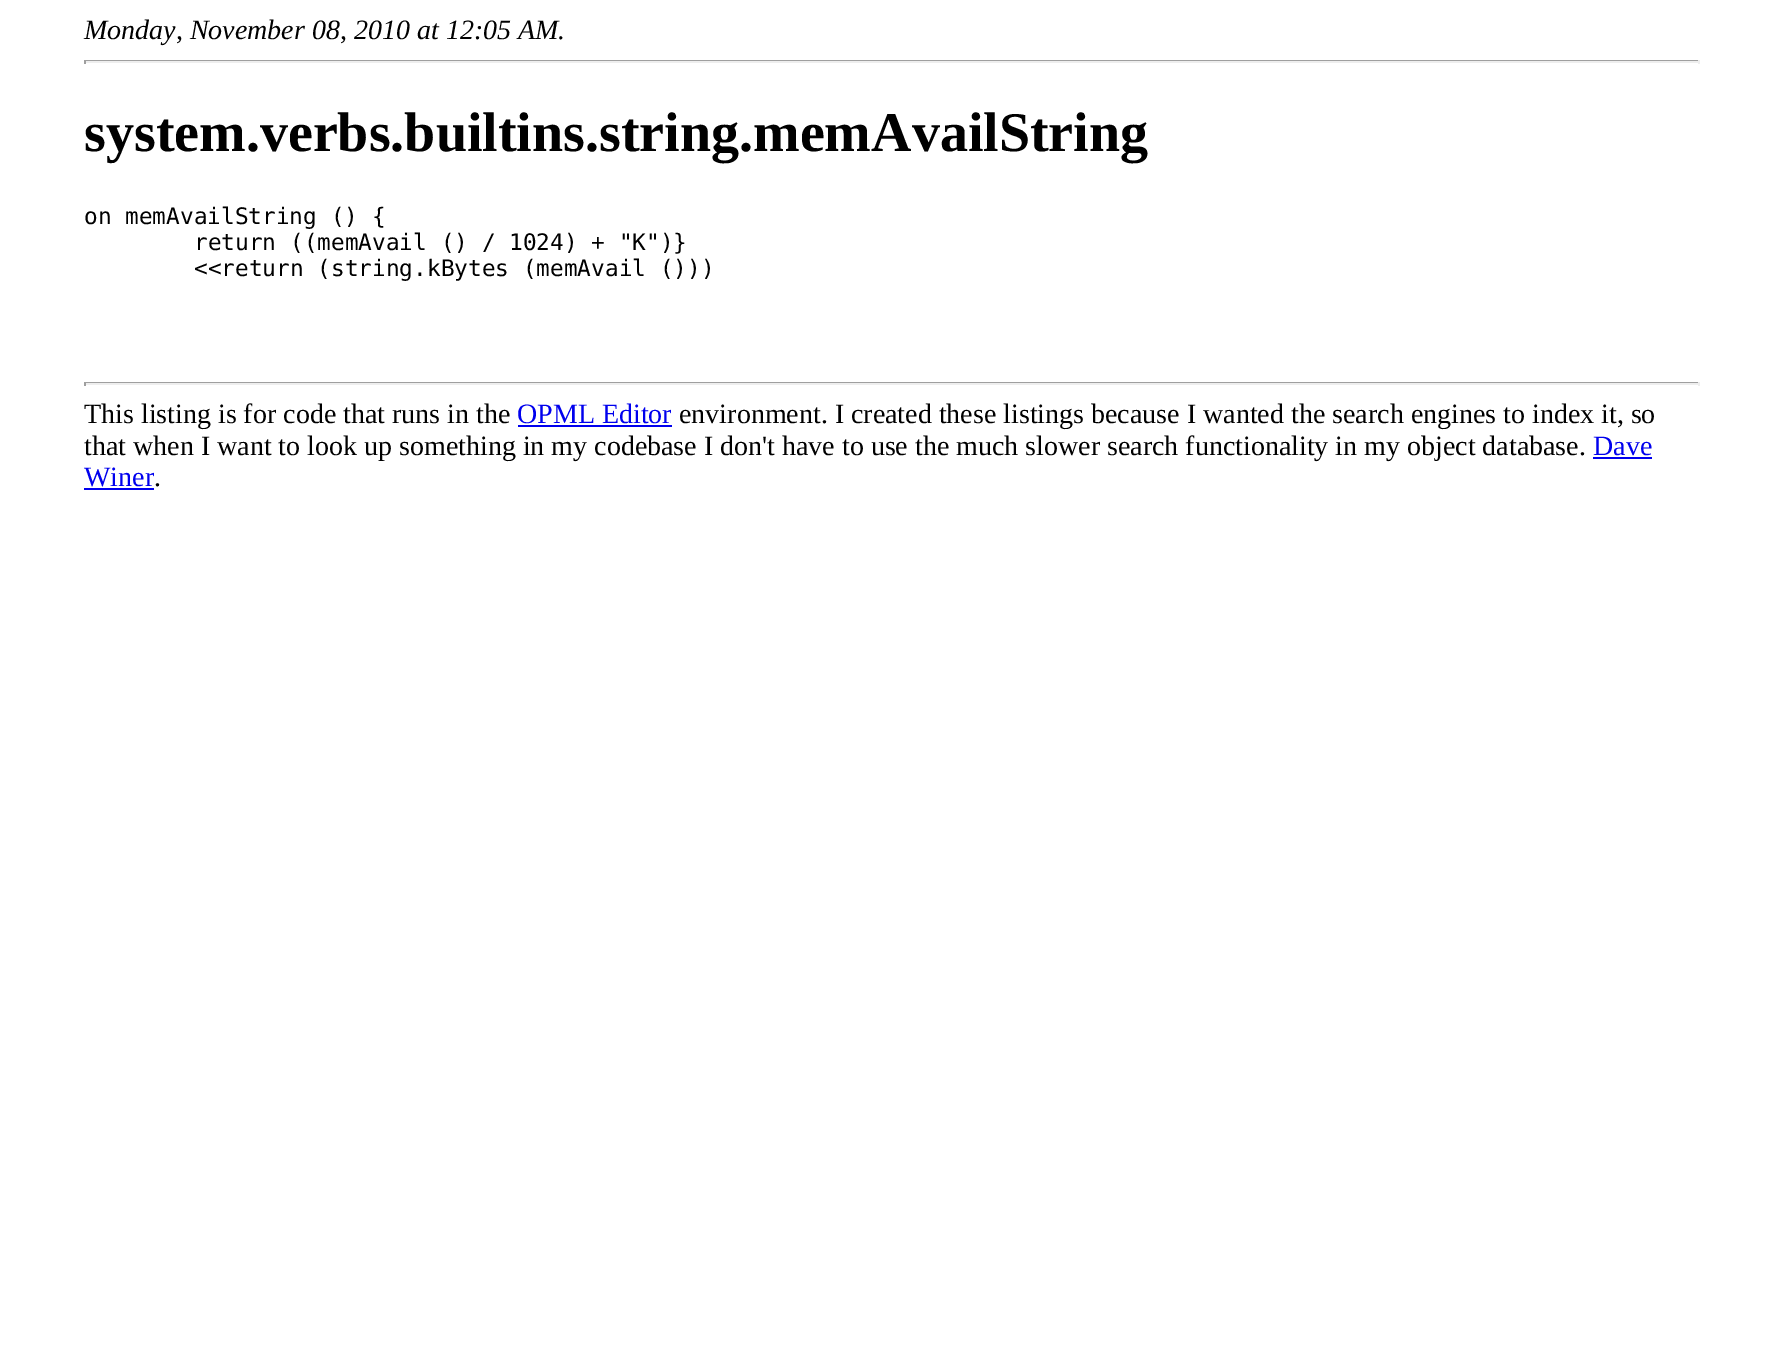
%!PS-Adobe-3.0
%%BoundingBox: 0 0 1783 1351
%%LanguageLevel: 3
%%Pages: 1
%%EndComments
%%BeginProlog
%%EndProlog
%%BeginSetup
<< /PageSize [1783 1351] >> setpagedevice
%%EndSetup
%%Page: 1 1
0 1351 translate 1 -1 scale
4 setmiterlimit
1 setgray
0 0 1783 1351 rectfill
0.624 setgray
84 60 1615 1 rectfill
0.933 setgray
1698 60 2 4 rectfill
84 61 1615 2 rectfill
0.624 setgray
84 60 2 4 rectfill
84 382 1615 1 rectfill
0.933 setgray
1698 382 2 4 rectfill
84 383 1615 2 rectfill
0.624 setgray
84 382 2 4 rectfill
0 0 0.933 setrgbcolor
518 425 154 2 rectfill
1593 457 59 2 rectfill
84 488 70 2 rectfill
/LiberationSerif-Italic [28 0 0 -28 0 0] selectfont
0 setgray
84 39 moveto (Monday, November 08, 2010 at 12:05 AM.) show
/LiberationSerif-Bold [56 0 0 -56 0 0] selectfont
84 151 moveto (system.verbs.builtins.string.memAvailString) show
/DejaVuSansMono-Regular [22.75 0 0 -22.75 0 0] selectfont
84 224 moveto (on memAvailString \(\) {) show
194 250 moveto (return \(\(memAvail \(\) / 1024\) + "K"\)}) show
194 276 moveto (<<return \(string.kBytes \(memAvail \(\)\)\)) show
/LiberationSerif-Regular [28 0 0 -28 0 0] selectfont
84 423 moveto (This listing is for code that runs in the) show
0 0 0.933 setrgbcolor
517 423 moveto (OPML Editor) show
0 setgray
679 423 moveto (environment. I created these listings because I wanted the search engines to index it, so) show
84 455 moveto (that when I want to look up something in my codebase I don't have to use the much slower search functionality in my object database.) show
0 0 0.933 setrgbcolor
1593 455 moveto (Dave) show
84 486 moveto (Winer) show
0 setgray
154 486 moveto (.) show
showpage
%%EOF
